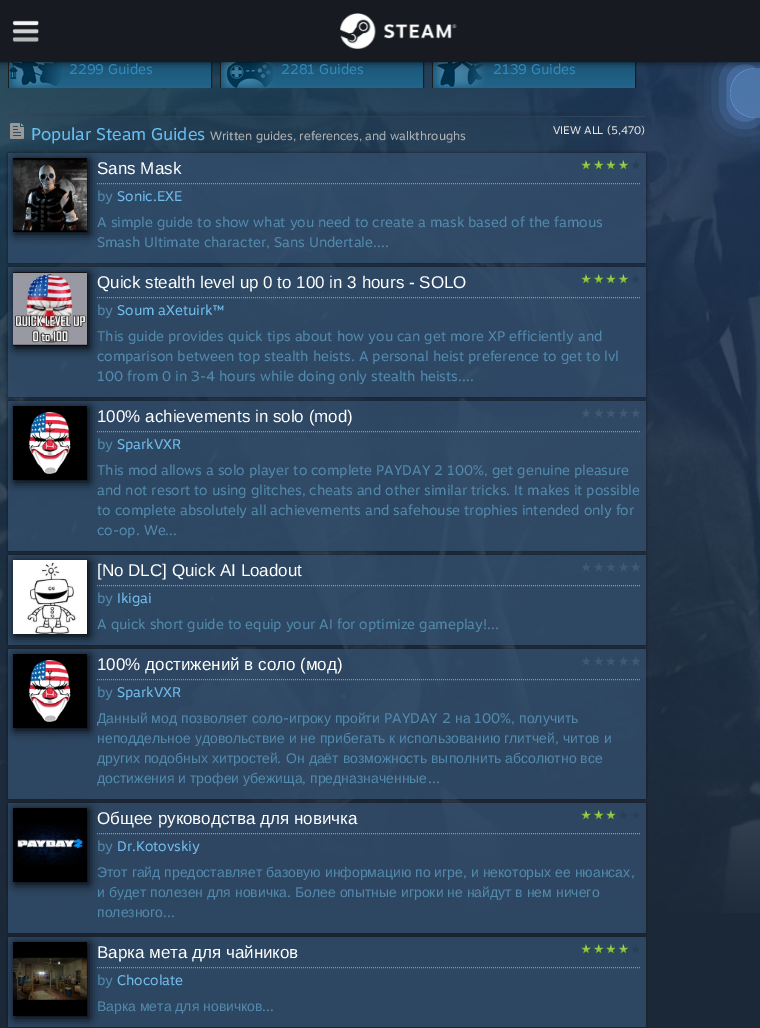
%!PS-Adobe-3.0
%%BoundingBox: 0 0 760 1028
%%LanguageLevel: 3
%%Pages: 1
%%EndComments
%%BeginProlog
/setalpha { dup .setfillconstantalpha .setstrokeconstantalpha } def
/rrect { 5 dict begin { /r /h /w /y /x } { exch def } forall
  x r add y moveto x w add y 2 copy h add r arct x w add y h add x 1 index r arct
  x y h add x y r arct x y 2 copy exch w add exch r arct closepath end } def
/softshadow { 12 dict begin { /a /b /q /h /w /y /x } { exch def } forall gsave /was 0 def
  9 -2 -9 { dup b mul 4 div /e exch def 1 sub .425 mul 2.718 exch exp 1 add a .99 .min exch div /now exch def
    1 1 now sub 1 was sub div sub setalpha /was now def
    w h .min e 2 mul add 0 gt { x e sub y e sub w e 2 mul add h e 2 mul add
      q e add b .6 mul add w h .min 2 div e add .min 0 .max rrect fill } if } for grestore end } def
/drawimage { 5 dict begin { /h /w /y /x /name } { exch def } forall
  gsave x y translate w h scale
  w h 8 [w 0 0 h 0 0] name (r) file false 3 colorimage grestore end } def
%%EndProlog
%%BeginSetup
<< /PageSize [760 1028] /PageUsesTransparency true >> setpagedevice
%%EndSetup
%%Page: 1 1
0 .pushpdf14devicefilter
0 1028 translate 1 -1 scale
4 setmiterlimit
0.106 0.157 0.22 setrgbcolor
0 0 760 1028 rectfill
(images/3.raw) 0 62 760 851 drawimage
gsave newpath 62 62 moveto 211 62 lineto 211 88 lineto 62 88 lineto closepath clip newpath
<< /ShadingType 2 /ColorSpace /DeviceRGB /Coords [110 34 110 90] /Extend [true true] /Function << /FunctionType 3 /Domain [0 1] /Functions [<< /FunctionType 2 /Domain [0 1] /C0 [0.09 0.263 0.361] /C1 [0.09 0.263 0.361] /N 1 >> << /FunctionType 2 /Domain [0 1] /C0 [0.09 0.263 0.361] /C1 [0.129 0.396 0.541] /N 1 >> << /FunctionType 2 /Domain [0 1] /C0 [0.129 0.396 0.541] /C1 [0.129 0.396 0.541] /N 1 >>] /Bounds [0.05 0.95] /Encode [0 1 0 1 0 1] >> >> shfill grestore
gsave
8 0 638 88 rectclip
0.11 0.114 0.114 setrgbcolor
8.5 33.5 203 57 rectstroke
grestore
(images/4.raw) 9 62 53 26 drawimage
gsave newpath 275 62 moveto 423 62 lineto 423 88 lineto 275 88 lineto closepath clip newpath
<< /ShadingType 2 /ColorSpace /DeviceRGB /Coords [322 34 322 90] /Extend [true true] /Function << /FunctionType 3 /Domain [0 1] /Functions [<< /FunctionType 2 /Domain [0 1] /C0 [0.09 0.263 0.361] /C1 [0.09 0.263 0.361] /N 1 >> << /FunctionType 2 /Domain [0 1] /C0 [0.09 0.263 0.361] /C1 [0.129 0.396 0.541] /N 1 >> << /FunctionType 2 /Domain [0 1] /C0 [0.129 0.396 0.541] /C1 [0.129 0.396 0.541] /N 1 >>] /Bounds [0.05 0.95] /Encode [0 1 0 1 0 1] >> >> shfill grestore
gsave
8 0 638 88 rectclip
0.11 0.114 0.114 setrgbcolor
220.5 33.5 203 57 rectstroke
grestore
(images/5.raw) 221 62 54 26 drawimage
gsave newpath 485 62 moveto 635 62 lineto 635 88 lineto 485 88 lineto closepath clip newpath
<< /ShadingType 2 /ColorSpace /DeviceRGB /Coords [534 34 534 90] /Extend [true true] /Function << /FunctionType 3 /Domain [0 1] /Functions [<< /FunctionType 2 /Domain [0 1] /C0 [0.09 0.263 0.361] /C1 [0.09 0.263 0.361] /N 1 >> << /FunctionType 2 /Domain [0 1] /C0 [0.09 0.263 0.361] /C1 [0.129 0.396 0.541] /N 1 >> << /FunctionType 2 /Domain [0 1] /C0 [0.129 0.396 0.541] /C1 [0.129 0.396 0.541] /N 1 >>] /Bounds [0.05 0.95] /Encode [0 1 0 1 0 1] >> >> shfill grestore
gsave
8 0 638 88 rectclip
0.11 0.114 0.114 setrgbcolor
432.5 33.5 203 57 rectstroke
grestore
(images/6.raw) 433 62 52 26 drawimage
gsave
newpath 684 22 moveto 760 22 lineto 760 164 lineto 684 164 lineto closepath 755 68 moveto 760 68 lineto 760 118 lineto 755 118 lineto 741 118 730 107 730 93 curveto 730 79 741 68 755 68 curveto closepath eoclip newpath
0.404 0.6 0.886 setrgbcolor
730 68 30 50 25 15 1 softshadow
grestore
0.6 setalpha
0.408 0.616 0.867 setrgbcolor
newpath 755 68 moveto 760 68 lineto 760 118 lineto 755 118 lineto 741 118 730 107 730 93 curveto 730 79 741 68 755 68 curveto closepath fill
1 setalpha
0 setgray
0 0 760 62 0 3.5 0.75 softshadow
0.09 0.102 0.129 setrgbcolor
0 0 760 62 rectfill
(images/1.raw) 12 20 27 22 drawimage
(images/2.raw) 340 13 117 36 drawimage
(images/7.raw) 8 111 637 141 drawimage
(images/8.raw) 10 123 14 16 drawimage
gsave
newpath 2 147 moveto 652 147 lineto 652 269 lineto 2 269 lineto closepath 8 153 moveto 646 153 lineto 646 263 lineto 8 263 lineto closepath eoclip newpath
0.078 setgray
8 153 638 110 0 1.5 0.75 softshadow
grestore
0.8 setalpha
0.196 0.302 0.42 setrgbcolor
8 153 638 110 rectfill
1 setalpha
0.561 0.596 0.627 setrgbcolor
[1 1] 0 setdash
newpath 97 183.5 moveto 641 183.5 lineto stroke
0 setgray
15 160 74 74 0 5 1 softshadow
13 158 74 74 rectfill
(images/9.raw) 13 159 74 72 drawimage
(images/10.raw) 581 160 59 10 drawimage
gsave
newpath 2 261 moveto 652 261 lineto 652 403 lineto 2 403 lineto closepath 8 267 moveto 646 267 lineto 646 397 lineto 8 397 lineto closepath eoclip newpath
0.078 setgray
8 267 638 130 0 1.5 0.75 softshadow
grestore
0.8 setalpha
0.196 0.302 0.42 setrgbcolor
8 267 638 130 rectfill
1 setalpha
0.561 0.596 0.627 setrgbcolor
newpath 97 297.5 moveto 641 297.5 lineto stroke
0 setgray
15 274 74 74 0 5 1 softshadow
(images/11.raw) 13 272 74 74 drawimage
(images/12.raw) 581 274 59 10 drawimage
gsave
newpath 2 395 moveto 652 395 lineto 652 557 lineto 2 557 lineto closepath 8 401 moveto 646 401 lineto 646 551 lineto 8 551 lineto closepath eoclip newpath
0.078 setgray
8 401 638 150 0 1.5 0.75 softshadow
grestore
0.8 setalpha
0.196 0.302 0.42 setrgbcolor
8 401 638 150 rectfill
1 setalpha
0.561 0.596 0.627 setrgbcolor
newpath 97 431.5 moveto 641 431.5 lineto stroke
0 setgray
15 408 74 74 0 5 1 softshadow
13 406 74 74 rectfill
(images/13.raw) 28 411 43 63 drawimage
(images/14.raw) 582 408 58 10 drawimage
gsave
newpath 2 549 moveto 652 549 lineto 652 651 lineto 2 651 lineto closepath 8 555 moveto 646 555 lineto 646 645 lineto 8 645 lineto closepath eoclip newpath
0.078 setgray
8 555 638 90 0 1.5 0.75 softshadow
grestore
0.8 setalpha
0.196 0.302 0.42 setrgbcolor
8 555 638 90 rectfill
1 setalpha
0.561 0.596 0.627 setrgbcolor
newpath 97 585.5 moveto 641 585.5 lineto stroke
0 setgray
15 562 74 74 0 5 1 softshadow
(images/15.raw) 13 560 74 74 drawimage
(images/16.raw) 582 562 58 10 drawimage
gsave
newpath 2 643 moveto 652 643 lineto 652 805 lineto 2 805 lineto closepath 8 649 moveto 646 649 lineto 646 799 lineto 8 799 lineto closepath eoclip newpath
0.078 setgray
8 649 638 150 0 1.5 0.75 softshadow
grestore
0.8 setalpha
0.196 0.302 0.42 setrgbcolor
8 649 638 150 rectfill
1 setalpha
0.561 0.596 0.627 setrgbcolor
newpath 97 679.5 moveto 641 679.5 lineto stroke
0 setgray
15 656 74 74 0 5 1 softshadow
13 654 74 74 rectfill
(images/13.raw) 28 659 43 63 drawimage
(images/17.raw) 582 656 58 10 drawimage
gsave
newpath 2 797 moveto 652 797 lineto 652 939 lineto 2 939 lineto closepath 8 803 moveto 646 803 lineto 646 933 lineto 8 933 lineto closepath eoclip newpath
0.078 setgray
8 803 638 130 0 1.5 0.75 softshadow
grestore
0.8 setalpha
0.196 0.302 0.42 setrgbcolor
8 803 638 130 rectfill
1 setalpha
0.561 0.596 0.627 setrgbcolor
newpath 97 833.5 moveto 641 833.5 lineto stroke
0 setgray
15 810 74 74 0 5 1 softshadow
13 808 74 74 rectfill
(images/18.raw) 13 824 74 42 drawimage
(images/19.raw) 581 810 59 10 drawimage
0.078 setgray
8 937 638 90 0 1.5 0.75 softshadow
0.176 0.275 0.38 setrgbcolor
8 937 638 90 rectfill
0.561 0.596 0.627 setrgbcolor
newpath 97 967.5 moveto 641 967.5 lineto stroke
0 setgray
15 944 74 74 0 5 1 softshadow
13 942 74 74 rectfill
(images/20.raw) 13 957 74 43 drawimage
(images/21.raw) 581 944 59 10 drawimage
/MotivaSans-Regular [14 0 0 -14 0 0] selectfont
0.184 0.537 0.737 setrgbcolor
69 74 moveto (2299 Guides) show
281 74 moveto (2281 Guides) show
493 74 moveto (2139 Guides) show
/MotivaSans-Regular [17 0 0 -17 0 0] selectfont
0.4 0.753 0.957 setrgbcolor
31 140 moveto (Popular Steam Guides) show
/MotivaSans-Regular [12 0 0 -12 0 0] selectfont
0.698 setgray
210 140 moveto (Written guides, references, and walkthroughs) show
/MotivaSans-Regular [11 0 0 -11 0 0] selectfont
0.898 setgray
553 134 moveto (VIEW ALL \(5,470\)) show
/LiberationSans-Regular [17 0 0 -17 0 0] selectfont
1 setgray
97 174 moveto (Sans Mask) show
/MotivaSans-Regular [14 0 0 -14 0 0] selectfont
0.318 0.541 0.678 setrgbcolor
97 201 moveto (by) show
0.439 0.745 0.929 setrgbcolor
117 201 moveto (Sonic.EXE) show
0.318 0.541 0.678 setrgbcolor
97 227 moveto (A simple guide to show what you need to create a mask based of the famous) show
97 247 moveto (Smash Ultimate character, Sans Undertale....) show
/LiberationSans-Regular [17 0 0 -17 0 0] selectfont
1 setgray
97 288 moveto (Quick stealth level up 0 to 100 in 3 hours - SOLO) show
/MotivaSans-Regular [14 0 0 -14 0 0] selectfont
0.318 0.541 0.678 setrgbcolor
97 315 moveto (by) show
0.439 0.745 0.929 setrgbcolor
117 315 moveto (Soum aXetuirk™) show
0.318 0.541 0.678 setrgbcolor
97 341 moveto (This guide provides quick tips about how you can get more XP efficiently and) show
97 361 moveto (comparison between top stealth heists. A personal heist preference to get to lvl) show
97 381 moveto (100 from 0 in 3-4 hours while doing only stealth heists....) show
/LiberationSans-Regular [17 0 0 -17 0 0] selectfont
1 setgray
97 422 moveto (100% achievements in solo \(mod\)) show
/MotivaSans-Regular [14 0 0 -14 0 0] selectfont
0.318 0.541 0.678 setrgbcolor
97 449 moveto (by) show
0.439 0.745 0.929 setrgbcolor
117 449 moveto (SparkVXR) show
0.318 0.541 0.678 setrgbcolor
97 475 moveto (This mod allows a solo player to complete PAYDAY 2 100%, get genuine pleasure) show
97 495 moveto (and not resort to using glitches, cheats and other similar tricks. It makes it possible) show
97 515 moveto (to complete absolutely all achievements and safehouse trophies intended only for) show
97 535 moveto (co-op. We...) show
/LiberationSans-Regular [17 0 0 -17 0 0] selectfont
1 setgray
97 576 moveto ([No DLC] Quick AI Loadout) show
/MotivaSans-Regular [14 0 0 -14 0 0] selectfont
0.318 0.541 0.678 setrgbcolor
97 603 moveto (by) show
0.439 0.745 0.929 setrgbcolor
117 603 moveto (Ikigai) show
0.318 0.541 0.678 setrgbcolor
97 629 moveto (A quick short guide to equip your AI for optimize gameplay!...) show
/LiberationSans-Regular [17 0 0 -17 0 0] selectfont
1 setgray
97 670 moveto (100% достижений в соло \(мод\)) show
/MotivaSans-Regular [14 0 0 -14 0 0] selectfont
0.318 0.541 0.678 setrgbcolor
97 697 moveto (by) show
0.439 0.745 0.929 setrgbcolor
117 697 moveto (SparkVXR) show
/LiberationSans-Regular [14 0 0 -14 0 0] selectfont
0.318 0.541 0.678 setrgbcolor
97 723 moveto (Данный мод позволяет соло) show
/MotivaSans-Regular [14 0 0 -14 0 0] selectfont
283 723 moveto (-) show
/LiberationSans-Regular [14 0 0 -14 0 0] selectfont
289 723 moveto (игроку пройти) show
/MotivaSans-Regular [14 0 0 -14 0 0] selectfont
384 723 moveto (PAYDAY 2) show
/LiberationSans-Regular [14 0 0 -14 0 0] selectfont
455 723 moveto (на) show
/MotivaSans-Regular [14 0 0 -14 0 0] selectfont
474 723 moveto (100%,) show
/LiberationSans-Regular [14 0 0 -14 0 0] selectfont
519 723 moveto (получить) show
97 743 moveto (неподдельное удовольствие и не прибегать к использованию глитчей) show
/MotivaSans-Regular [14 0 0 -14 0 0] selectfont
555 743 moveto (,) show
/LiberationSans-Regular [14 0 0 -14 0 0] selectfont
563 743 moveto (читов и) show
97 763 moveto (других подобных хитростей) show
/MotivaSans-Regular [14 0 0 -14 0 0] selectfont
277 763 moveto (.) show
/LiberationSans-Regular [14 0 0 -14 0 0] selectfont
286 763 moveto (Он даёт возможность выполнить абсолютно все) show
97 783 moveto (достижения и трофеи убежища) show
/MotivaSans-Regular [14 0 0 -14 0 0] selectfont
302 783 moveto (,) show
/LiberationSans-Regular [14 0 0 -14 0 0] selectfont
310 783 moveto (предназначенные) show
/MotivaSans-Regular [14 0 0 -14 0 0] selectfont
428 783 moveto (...) show
/LiberationSans-Regular [17 0 0 -17 0 0] selectfont
1 setgray
97 824 moveto (Общее руководства для новичка) show
/MotivaSans-Regular [14 0 0 -14 0 0] selectfont
0.318 0.541 0.678 setrgbcolor
97 851 moveto (by) show
0.439 0.745 0.929 setrgbcolor
117 851 moveto (Dr.Kotovskiy) show
/LiberationSans-Regular [14 0 0 -14 0 0] selectfont
0.318 0.541 0.678 setrgbcolor
97 877 moveto (Этот гайд предоставляет базовую информацию по игре) show
/MotivaSans-Regular [14 0 0 -14 0 0] selectfont
463 877 moveto (,) show
/LiberationSans-Regular [14 0 0 -14 0 0] selectfont
471 877 moveto (и некоторых ее нюансах) show
/MotivaSans-Regular [14 0 0 -14 0 0] selectfont
631 877 moveto (,) show
/LiberationSans-Regular [14 0 0 -14 0 0] selectfont
97 897 moveto (и будет полезен для новичка) show
/MotivaSans-Regular [14 0 0 -14 0 0] selectfont
287 897 moveto (.) show
/LiberationSans-Regular [14 0 0 -14 0 0] selectfont
295 897 moveto (Более опытные игроки не найдут в нем ничего) show
97 917 moveto (полезного) show
/MotivaSans-Regular [14 0 0 -14 0 0] selectfont
163 917 moveto (...) show
/LiberationSans-Regular [17 0 0 -17 0 0] selectfont
1 setgray
97 958 moveto (Варка мета для чайников) show
/MotivaSans-Regular [14 0 0 -14 0 0] selectfont
0.318 0.541 0.678 setrgbcolor
97 985 moveto (by) show
0.439 0.745 0.929 setrgbcolor
117 985 moveto (Chocolate) show
/LiberationSans-Regular [14 0 0 -14 0 0] selectfont
0.318 0.541 0.678 setrgbcolor
97 1011 moveto (Варка мета для новичков) show
/MotivaSans-Regular [14 0 0 -14 0 0] selectfont
262 1011 moveto (...) show
.poppdf14devicefilter showpage
%%EOF
